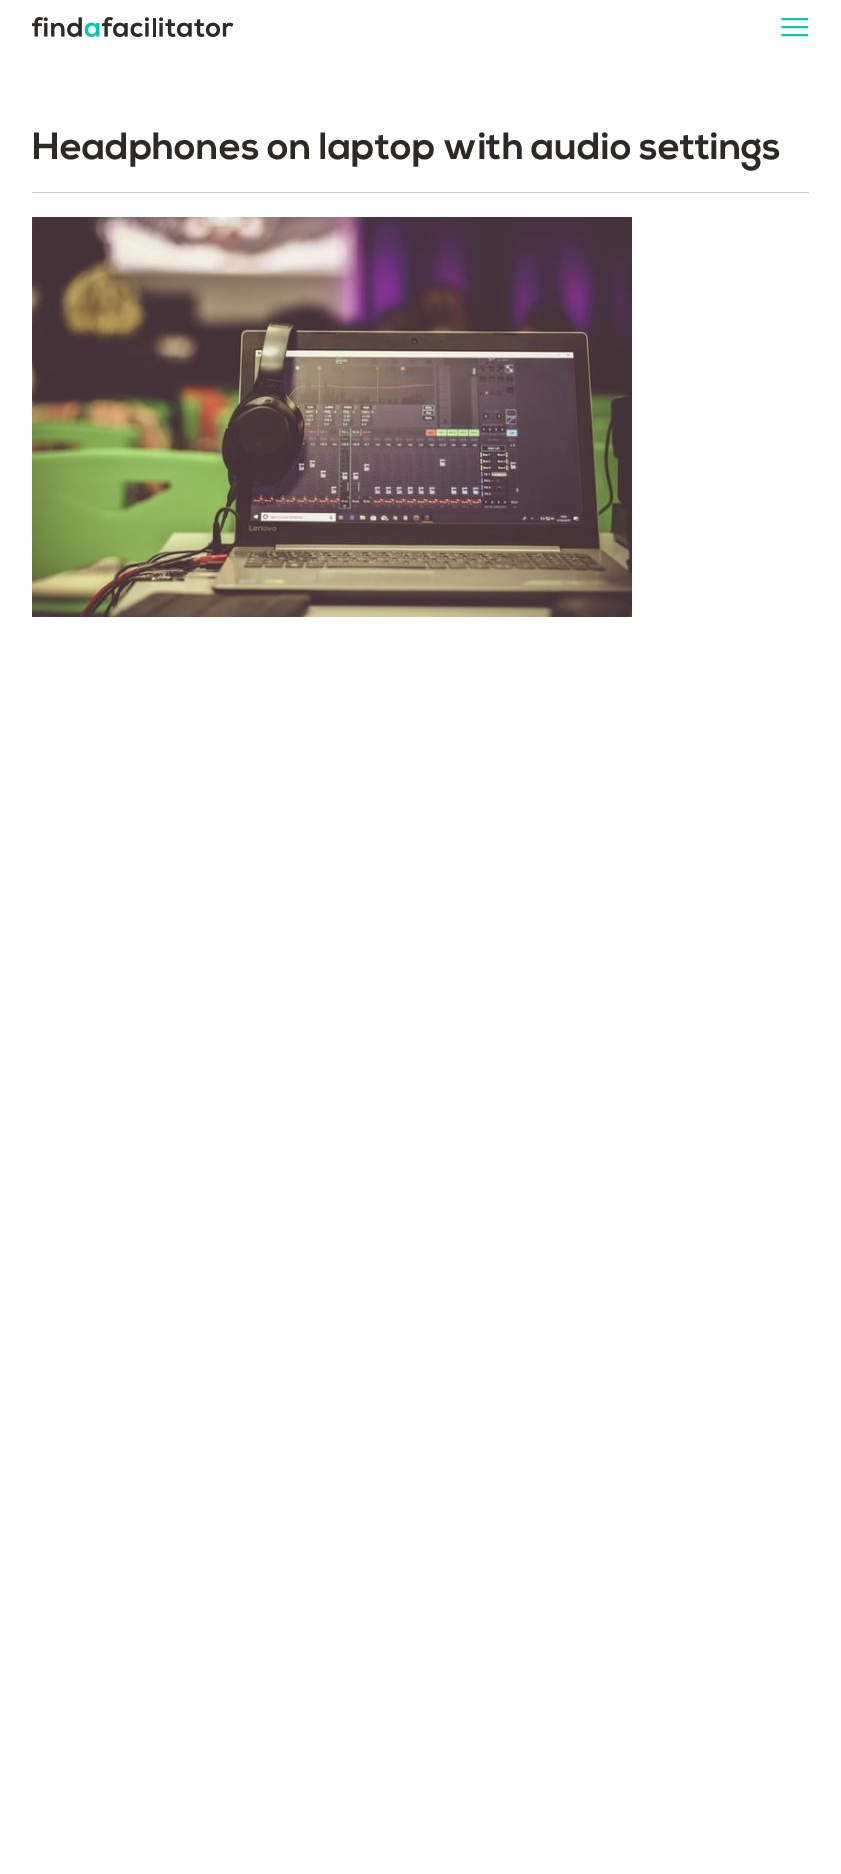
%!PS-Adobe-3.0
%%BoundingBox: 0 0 841 1874
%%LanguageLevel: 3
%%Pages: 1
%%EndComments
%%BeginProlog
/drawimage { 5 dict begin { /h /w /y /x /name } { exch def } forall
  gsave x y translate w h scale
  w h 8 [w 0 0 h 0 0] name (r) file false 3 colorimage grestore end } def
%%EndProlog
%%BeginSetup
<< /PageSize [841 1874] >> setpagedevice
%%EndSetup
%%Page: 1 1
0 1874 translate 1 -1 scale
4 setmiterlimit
1 setgray
0 0 841 1874 rectfill
(images/1.raw) 32 17 202 20 drawimage
0 0.78 0.694 setrgbcolor
2 setlinewidth
2 setlinecap
newpath 782.5 19 moveto 807 19 lineto 782.5 27 moveto 807 27 lineto 782.5 35 moveto 807 35 lineto stroke
0.796 0.792 0.784 setrgbcolor
32 192 777 1 rectfill
(images/2.raw) 32 217 600 400 drawimage
/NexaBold-Bold [38 0 0 -38 0 0] selectfont
0.176 0.165 0.149 setrgbcolor
32 159 moveto (Headphones on laptop with audio settings) show
showpage
%%EOF
